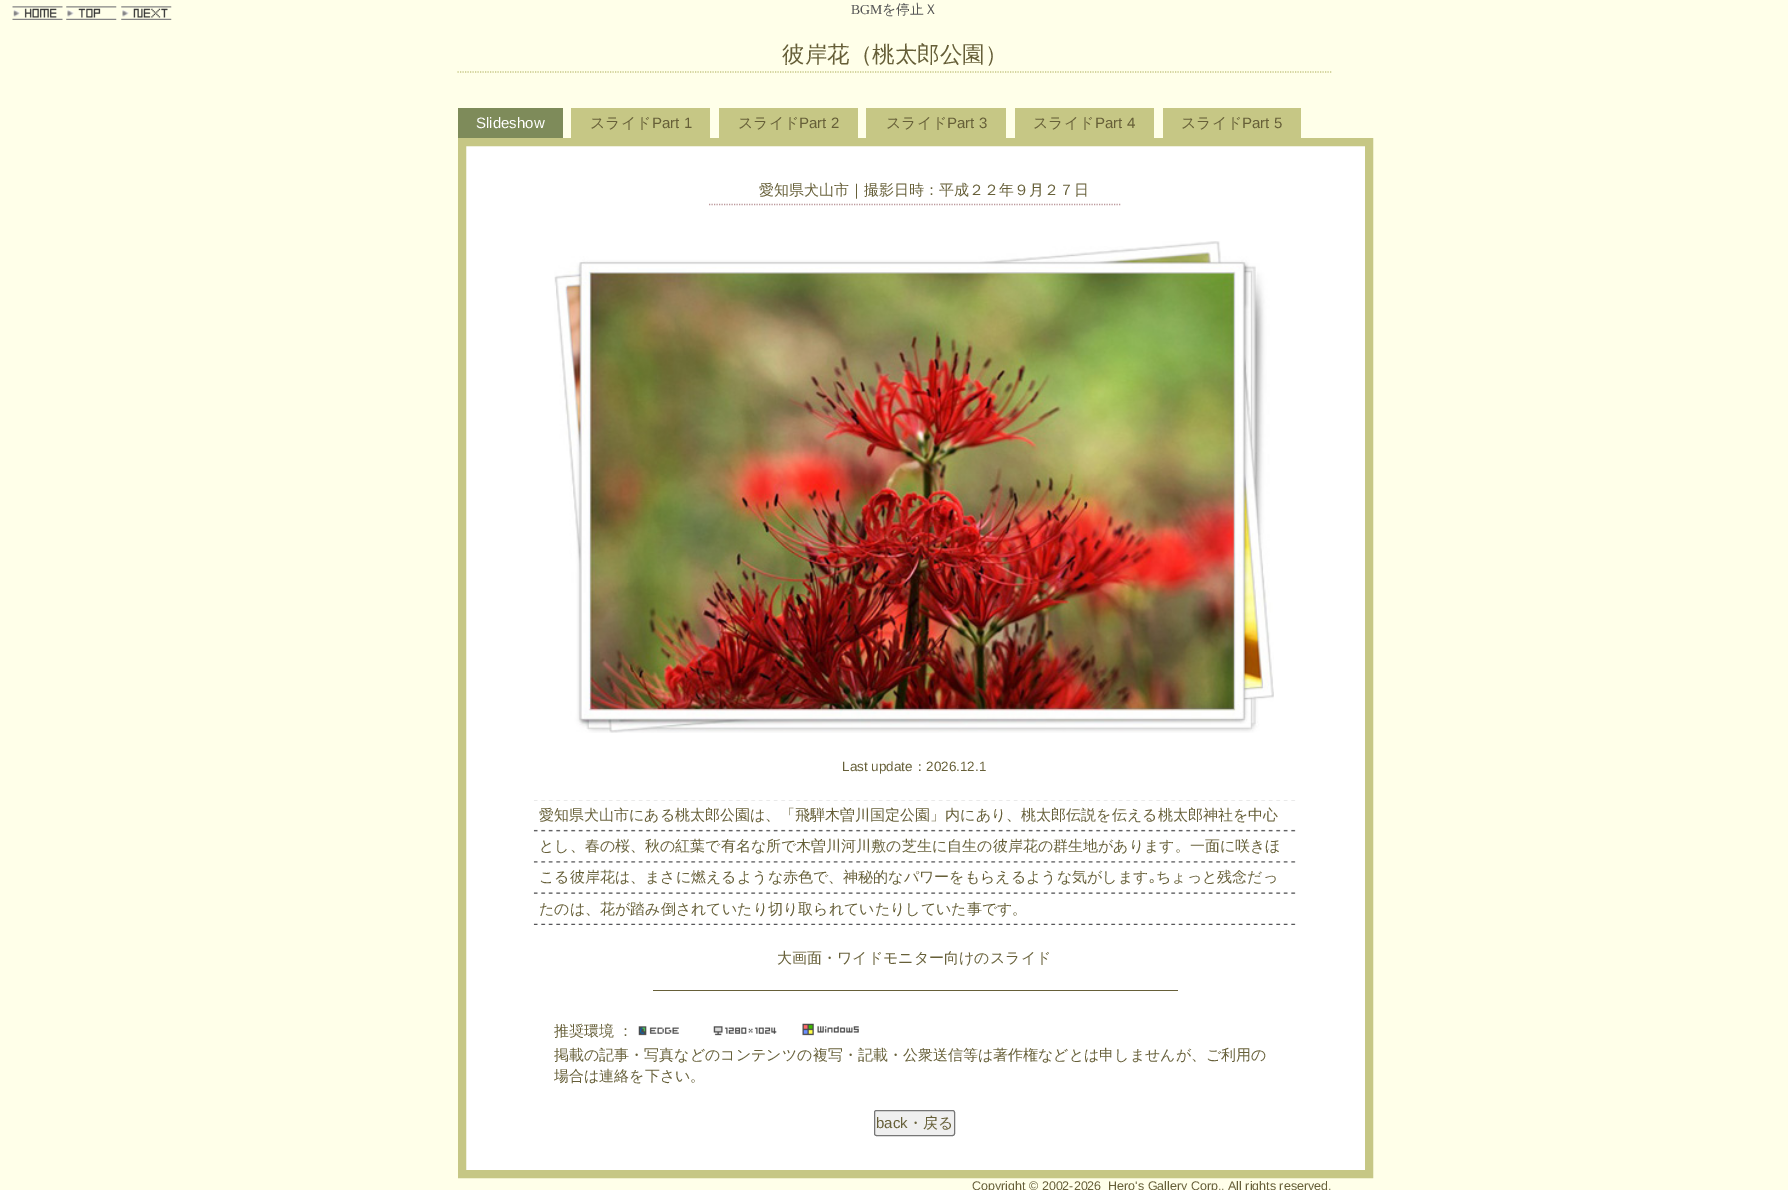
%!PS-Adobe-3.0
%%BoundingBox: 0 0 1788 1190
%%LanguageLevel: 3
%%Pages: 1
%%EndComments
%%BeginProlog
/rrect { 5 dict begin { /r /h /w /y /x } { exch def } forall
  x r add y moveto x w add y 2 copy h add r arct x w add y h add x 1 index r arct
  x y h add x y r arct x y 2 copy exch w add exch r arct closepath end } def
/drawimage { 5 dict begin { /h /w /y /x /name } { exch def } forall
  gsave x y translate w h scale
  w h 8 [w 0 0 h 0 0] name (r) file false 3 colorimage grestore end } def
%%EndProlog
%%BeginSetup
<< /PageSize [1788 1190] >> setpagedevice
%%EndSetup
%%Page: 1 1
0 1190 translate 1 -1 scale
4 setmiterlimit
1 1 0.914 setrgbcolor
0 0 1788 1190 rectfill
(images/1.raw) 12 6 51 14 drawimage
(images/2.raw) 66 6 51 14 drawimage
(images/3.raw) 121 6 51 14 drawimage
0.776 0.78 0.522 setrgbcolor
1.2 setlinewidth
[1.25 1.25] 0 setdash
newpath 457.5 72 moveto 1332.5 72 lineto stroke
0.494 0.545 0.353 setrgbcolor
458 108 105 30 rectfill
0.776 0.78 0.522 setrgbcolor
571 108 139 30 rectfill
719 108 139 30 rectfill
866 108 140 30 rectfill
1015 108 139 30 rectfill
1163 108 138 30 rectfill
1 setgray
newpath 462 142 moveto 1369 142 lineto 1369 1174 lineto 462 1174 lineto closepath gsave fill grestore
0.776 0.78 0.522 setrgbcolor
8 setlinewidth
[] 0 setdash
stroke
0.741 0.6 0.612 setrgbcolor
1.2 setlinewidth
[1.25 1.25] 0 setdash
newpath 709 204.5 moveto 1121 204.5 lineto stroke
(images/4.raw) 554 241 720 492 drawimage
(images/5.raw) 533 800 763 125 drawimage
0.4 0.373 0.22 setrgbcolor
653 990 525 1 rectfill
(images/6.raw) 638 1026 41 10 drawimage
(images/7.raw) 713 1026 64 10 drawimage
(images/8.raw) 802 1023 57 13 drawimage
0.937 setgray
874.5 1110.5 80 25 2 rrect gsave fill grestore
0.463 setgray
1 setlinewidth
[] 0 setdash
stroke
/LiberationSerif-Regular [13.75 0 0 -13.75 0 0] selectfont
0.333 setgray
851 14 moveto (BGM) show
/WenQuanYiZenHei-Medium [13.75 0 0 -13.75 0 0] selectfont
882 14 moveto (を停止Ｘ) show
/WenQuanYiZenHei-Medium [22.5 0 0 -22.5 0 0] selectfont
0.4 0.373 0.22 setrgbcolor
782 62 moveto (彼岸花（桃太郎公園）) show
/LiberationSans-Regular [15 0 0 -15 0 0] selectfont
1 setgray
476 128 moveto (Slideshow) show
/WenQuanYiZenHei-Medium [15 0 0 -15 0 0] selectfont
0.4 0.373 0.22 setrgbcolor
590 128 moveto (スライド) show
/LiberationSans-Regular [15 0 0 -15 0 0] selectfont
652 128 moveto (Part 1) show
/WenQuanYiZenHei-Medium [15 0 0 -15 0 0] selectfont
738 128 moveto (スライド) show
/LiberationSans-Regular [15 0 0 -15 0 0] selectfont
799 128 moveto (Part 2) show
/WenQuanYiZenHei-Medium [15 0 0 -15 0 0] selectfont
886 128 moveto (スライド) show
/LiberationSans-Regular [15 0 0 -15 0 0] selectfont
947 128 moveto (Part 3) show
/WenQuanYiZenHei-Medium [15 0 0 -15 0 0] selectfont
1033 128 moveto (スライド) show
/LiberationSans-Regular [15 0 0 -15 0 0] selectfont
1095 128 moveto (Part 4) show
/WenQuanYiZenHei-Medium [15 0 0 -15 0 0] selectfont
1181 128 moveto (スライド) show
/LiberationSans-Regular [15 0 0 -15 0 0] selectfont
1242 128 moveto (Part 5) show
/WenQuanYiZenHei-Medium [15 0 0 -15 0 0] selectfont
759 195 moveto (愛知県犬山市｜撮影日時：平成２２年９月２７日) show
/LiberationSans-Regular [13.5 0 0 -13.5 0 0] selectfont
842 771 moveto (Last update) show
/WenQuanYiZenHei-Medium [13.5 0 0 -13.5 0 0] selectfont
913 771 moveto (：) show
/LiberationSans-Regular [13.5 0 0 -13.5 0 0] selectfont
926 771 moveto (2026.12.1) show
/WenQuanYiZenHei-Medium [15 0 0 -15 0 0] selectfont
539 820 moveto (愛知県犬山市にある桃太郎公園は、「飛騨木曽川国定公園」内にあり、桃太郎伝説を伝える桃太郎神社を中心) show
539 851 moveto (とし、春の桜、秋の紅葉で有名な所で木曽川河川敷の芝生に自生の彼岸花の群生地があります。一面に咲きほ) show
539 882 moveto (こる彼岸花は、まさに燃えるような赤色で、神秘的なパワーをもらえるような気がします) show
/IPAPGothic-Regular [15 0 0 -15 0 0] selectfont
1149 882 moveto (｡) show
/WenQuanYiZenHei-Medium [15 0 0 -15 0 0] selectfont
1156 882 moveto (ちょっと残念だっ) show
539 914 moveto (たのは、花が踏み倒されていたり切り取られていたりしていた事です。) show
777 963 moveto (大画面・ワイドモニター向けのスライド) show
554 1036 moveto (推奨環境 ：) show
554 1060 moveto (掲載の記事・写真などのコンテンツの複写・記載・公衆送信等は著作権などとは申しませんが、ご利用の) show
554 1081 moveto (場合は連絡を下さい。) show
/LiberationSans-Regular [15 0 0 -15 0 0] selectfont
876 1128 moveto (back) show
/WenQuanYiZenHei-Medium [15 0 0 -15 0 0] selectfont
908 1128 moveto (・戻る) show
/LiberationSans-Regular [12.5 0 0 -12.5 0 0] selectfont
972 1190 moveto (Copyright © 2002-2026  Hero's Gallery Corp., All rights reserved.) show
showpage
%%EOF
